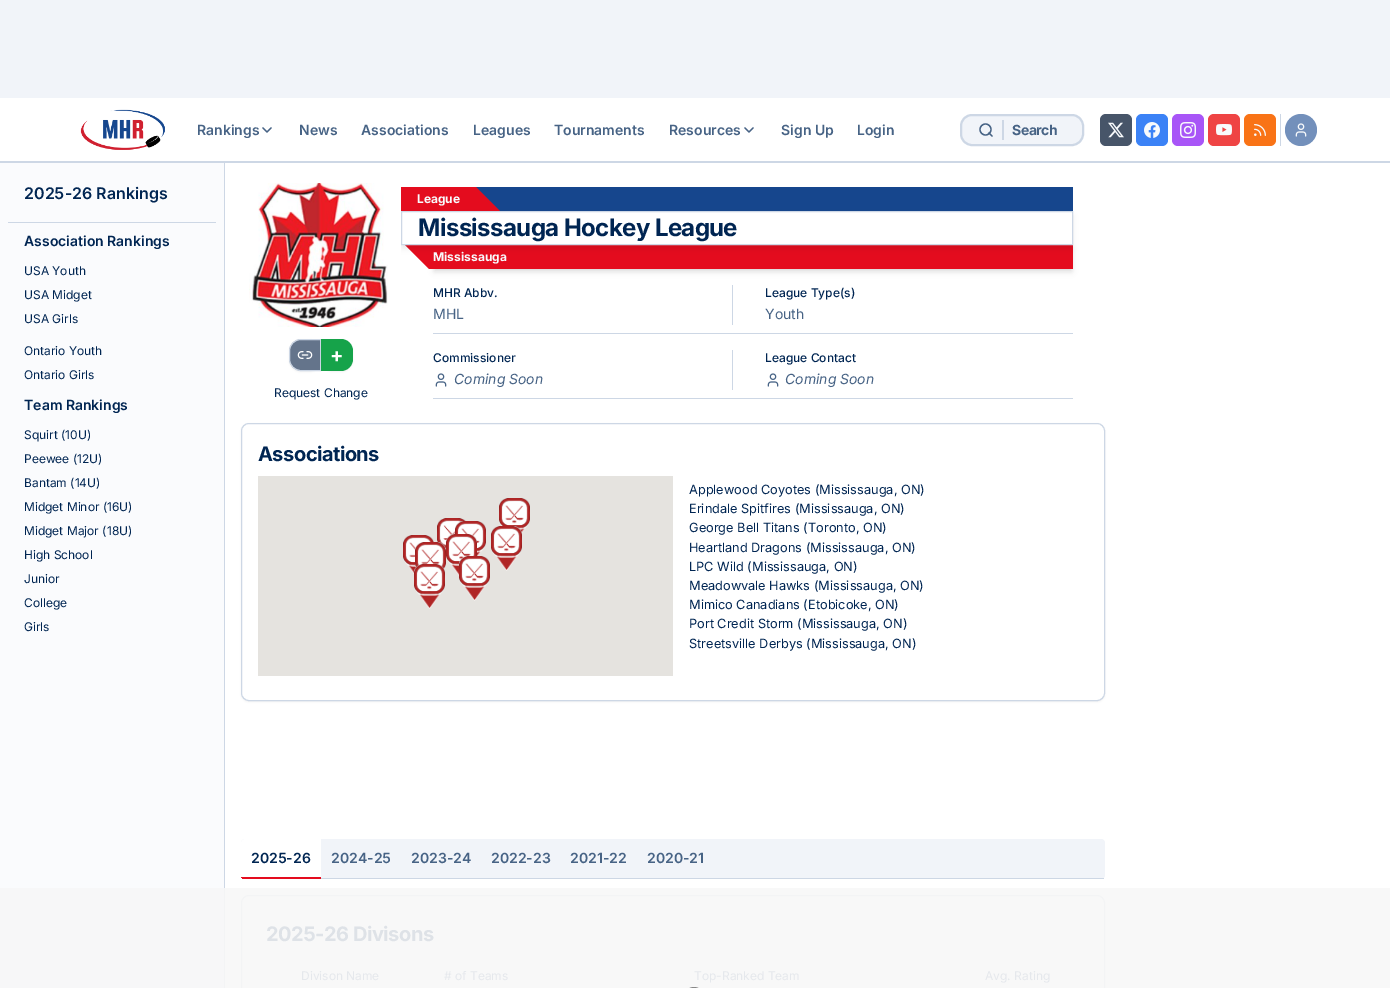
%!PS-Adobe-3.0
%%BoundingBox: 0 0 1390 988
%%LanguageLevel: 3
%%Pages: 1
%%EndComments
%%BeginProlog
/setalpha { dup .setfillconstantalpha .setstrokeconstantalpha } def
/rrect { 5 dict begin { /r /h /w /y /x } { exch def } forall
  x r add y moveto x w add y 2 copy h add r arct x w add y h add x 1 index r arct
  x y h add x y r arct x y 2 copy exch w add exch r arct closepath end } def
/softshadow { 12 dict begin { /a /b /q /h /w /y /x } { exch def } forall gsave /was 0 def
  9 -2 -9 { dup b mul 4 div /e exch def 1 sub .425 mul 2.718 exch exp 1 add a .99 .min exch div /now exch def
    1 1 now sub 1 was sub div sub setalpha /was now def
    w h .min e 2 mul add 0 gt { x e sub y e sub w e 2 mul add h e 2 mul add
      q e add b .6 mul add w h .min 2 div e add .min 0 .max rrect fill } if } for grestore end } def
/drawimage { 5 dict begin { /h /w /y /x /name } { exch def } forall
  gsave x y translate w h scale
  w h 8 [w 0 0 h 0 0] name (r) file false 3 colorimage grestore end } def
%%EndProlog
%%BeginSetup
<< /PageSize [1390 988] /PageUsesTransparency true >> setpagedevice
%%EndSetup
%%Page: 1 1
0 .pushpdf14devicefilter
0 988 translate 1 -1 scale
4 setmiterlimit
1 setgray
0 0 1390 988 rectfill
0.973 setgray
225 888 1165 100 rectfill
0.945 0.957 0.976 setrgbcolor
0 0 1390 98 rectfill
0.804 0.843 0.898 setrgbcolor
0 161 1390 2 rectfill
(images/1.raw) 80 109 85 41 drawimage
0.278 0.388 0.522 setrgbcolor
1.3 setlinewidth
1 setlinecap
1 setlinejoin
newpath 263 128 moveto 267 132 lineto 271 128 lineto stroke
newpath 745 128 moveto 749 132 lineto 753 128 lineto stroke
0.945 0.957 0.976 setrgbcolor
961 115 122 30 11 rrect gsave fill grestore
0.804 0.843 0.898 setrgbcolor
2 setlinewidth
0 setlinecap
0 setlinejoin
stroke
0.278 0.388 0.522 setrgbcolor
1.3 setlinewidth
1 setlinecap
1 setlinejoin
newpath 992 136 moveto 989 133 lineto stroke
0 setlinecap
0 setlinejoin
newpath 985.5 129.5 5.5 0 360 arc closepath stroke
0.804 0.843 0.898 setrgbcolor
1002 120 2 20 rectfill
0.278 0.333 0.412 setrgbcolor
1100 114 32 32 6 rrect fill
(images/2.raw) 1108 122 16 16 drawimage
0.231 0.51 0.965 setrgbcolor
1136 114 32 32 6 rrect fill
(images/3.raw) 1144 122 16 16 drawimage
0.659 0.333 0.969 setrgbcolor
1172 114 32 32 6 rrect fill
(images/4.raw) 1180 122 16 16 drawimage
0.937 0.267 0.267 setrgbcolor
1208 114 32 32 6 rrect fill
(images/5.raw) 1216 124 16 12 drawimage
0.976 0.451 0.086 setrgbcolor
1244 114 32 32 6 rrect fill
(images/6.raw) 1254 124 12 12 drawimage
0.804 0.843 0.898 setrgbcolor
1280 114 1 32 rectfill
0.451 0.565 0.733 setrgbcolor
newpath 1301 130 16 0 360 arc closepath fill
(images/7.raw) 1295 123 12 14 drawimage
0.98 0.984 0.992 setrgbcolor
0 163 224 725 rectfill
0.969 0.969 0.973 setrgbcolor
0 888 224 100 rectfill
0.804 0.843 0.898 setrgbcolor
224 163 1 725 rectfill
0.953 0.957 0.961 setrgbcolor
224 888 1 100 rectfill
0.804 0.843 0.898 setrgbcolor
8 222 208 1 rectfill
(images/8.raw) 249 183 139 144 drawimage
0 setgray
289 340 32 32 12 1 0.05 softshadow
0.392 0.455 0.545 setrgbcolor
newpath 301 339.5 moveto 320.5 339.5 lineto 320.5 370.5 lineto 301 370.5 lineto 294.5 370.5 289.5 365.5 289.5 359 curveto 289.5 351 lineto 289.5 344.5 294.5 339.5 301 339.5 curveto closepath gsave fill grestore
0.804 0.843 0.898 setrgbcolor
1 setlinewidth
stroke
(images/9.raw) 297 351 16 8 drawimage
0 setgray
321 340 32 32 12 1 0.05 softshadow
0.086 0.639 0.29 setrgbcolor
newpath 321 339 moveto 341 339 lineto 347.5 339 353 344.5 353 351 curveto 353 359 lineto 353 365.5 347.5 371 341 371 curveto 321 371 lineto closepath fill
0.086 0.275 0.553 setrgbcolor
476 187 597 24 rectfill
0.894 0.047 0.118 setrgbcolor
401 187 75 24 rectfill
0 setgray
435 249 636 20 0 2 0.1 softshadow
434 250 638 22 0 3 0.1 softshadow
0.894 0.047 0.118 setrgbcolor
437 245 636 24 rectfill
newpath 405 245 moveto 437 245 lineto 461 269 lineto 429 269 lineto closepath fill
0.804 0.843 0.898 setrgbcolor
732 285 1 40 rectfill
433 333 640 1 rectfill
(images/10.raw) 435 373 12 14 drawimage
732 350 1 40 rectfill
(images/10.raw) 767 373 12 14 drawimage
433 398 640 1 rectfill
0 setgray
241 424 864 278 8 1 0.05 softshadow
1 setgray
241.5 423.5 863 277 7.5 rrect gsave fill grestore
0.804 0.843 0.898 setrgbcolor
stroke
0.898 0.89 0.875 setrgbcolor
258 476 415 200 rectfill
(images/11.raw) 437 518 29 32 drawimage
(images/12.raw) 455 521 31 35 drawimage
(images/13.raw) 499 498 31 36 drawimage
(images/14.raw) 403 535 31 39 drawimage
(images/15.raw) 446 534 31 42 drawimage
(images/16.raw) 491 526 31 45 drawimage
(images/17.raw) 415 542 31 28 drawimage
(images/18.raw) 459 556 31 45 drawimage
(images/19.raw) 414 564 31 45 drawimage
0.945 0.957 0.976 setrgbcolor
241 839 864 40 4 rrect fill
gsave
241 839 864 40 4 rrect clip newpath
1 setgray
newpath 245 839 moveto 321 839 lineto 321 877 lineto 241 877 lineto 241 843 lineto 241 841 243 839 245 839 curveto closepath fill
0.804 0.843 0.898 setrgbcolor
241 878 864 1 rectfill
0.894 0.047 0.118 setrgbcolor
241 877 80 2 rectfill
grestore
0.953 0.957 0.961 setrgbcolor
241.5 895.5 863 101 7.5 rrect stroke
0.533 setgray
683.5 987.5 21 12 10.5 rrect stroke
/Inter-SemiBold [14 0 0 -14 0 0] selectfont
0.278 0.388 0.522 setrgbcolor
197 135 moveto (Rankings) show
299 135 moveto (News) show
361 135 moveto (Associations) show
473 135 moveto (Leagues) show
554 135 moveto (Tournaments) show
669 135 moveto (Resources) show
781 135 moveto (Sign Up) show
857 135 moveto (Login) show
/Inter-Bold [14 0 0 -14 0 0] selectfont
1012 135 moveto -0.5 0 (Search) ashow
/Inter-SemiBold [16 0 0 -16 0 0] selectfont
0 0.145 0.322 setrgbcolor
24 199 moveto (2025-26 Rankings) show
/Inter-SemiBold [14 0 0 -14 0 0] selectfont
24 246 moveto (Association Rankings) show
/Inter-Regular [12 0 0 -12 0 0] selectfont
24 275 moveto (USA Youth) show
24 299 moveto (USA Midget) show
24 323 moveto (USA Girls) show
24 355 moveto (Ontario Youth) show
24 379 moveto (Ontario Girls) show
/Inter-SemiBold [14 0 0 -14 0 0] selectfont
24 410 moveto (Team Rankings) show
/Inter-Regular [12 0 0 -12 0 0] selectfont
24 439 moveto (Squirt \(10U\)) show
24 463 moveto (Peewee \(12U\)) show
24 487 moveto (Bantam \(14U\)) show
24 511 moveto (Midget Minor \(16U\)) show
24 535 moveto (Midget Major \(18U\)) show
24 559 moveto (High School) show
24 583 moveto (Junior) show
24 607 moveto (College) show
24 631 moveto (Girls) show
/Inter-Bold [20 0 0 -20 0 0] selectfont
1 setgray
330 362 moveto (+) show
/Inter-Regular [12 0 0 -12 0 0] selectfont
0 0.145 0.322 setrgbcolor
274 397 moveto (Request Change) show
/Inter-Bold [12 0 0 -12 0 0] selectfont
0.973 0.98 0.988 setrgbcolor
417 203 moveto (League) show
0.894 0.047 0.118 setrgbcolor
newpath 452 187 moveto 476 187 lineto 500 211 lineto 476 211 lineto closepath fill
gsave
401 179 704 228 rectclip
newpath 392 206 moveto 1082 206 lineto 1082 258 lineto 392 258 lineto closepath 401 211 moveto 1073 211 lineto 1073 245 lineto 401 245 lineto closepath eoclip newpath
0 setgray
402 216 670 32 0 3 0.1 softshadow
grestore
0.804 0.843 0.898 setrgbcolor
401.5 211.5 671 33 rectstroke
/Inter-Bold [24 0 0 -24 0 0] selectfont
0 0.145 0.322 setrgbcolor
418 236 moveto -0.6 0 (Mississauga Hockey League) ashow
/Inter-Bold [12 0 0 -12 0 0] selectfont
0.973 0.98 0.988 setrgbcolor
433 261 moveto (Mississauga) show
/Inter-Medium [12 0 0 -12 0 0] selectfont
0 0.145 0.322 setrgbcolor
433 297 moveto (MHR Abbv.) show
/Inter-Regular [14 0 0 -14 0 0] selectfont
0.278 0.388 0.522 setrgbcolor
433 319 moveto (MHL) show
/Inter-Medium [12 0 0 -12 0 0] selectfont
0 0.145 0.322 setrgbcolor
765 297 moveto (League Type\(s\)) show
/Inter-Regular [14 0 0 -14 0 0] selectfont
0.278 0.388 0.522 setrgbcolor
765 319 moveto (Youth) show
/Inter-Medium [12 0 0 -12 0 0] selectfont
0 0.145 0.322 setrgbcolor
433 362 moveto (Commissioner) show
/Inter-Italic [14 0 0 -14 0 0] selectfont
0.278 0.388 0.522 setrgbcolor
454 384 moveto (Coming Soon) show
/Inter-Medium [12 0 0 -12 0 0] selectfont
0 0.145 0.322 setrgbcolor
765 362 moveto (League Contact) show
/Inter-Italic [14 0 0 -14 0 0] selectfont
0.278 0.388 0.522 setrgbcolor
785 384 moveto (Coming Soon) show
/Inter-Bold [20 0 0 -20 0 0] selectfont
0 0.145 0.322 setrgbcolor
258 461 moveto -0.5 0 (Associations) ashow
/Inter-Regular [12.75 0 0 -12.75 0 0] selectfont
689 494 moveto (Applewood Coyotes \(Mississauga, ON\)) show
689 513 moveto (Erindale Spitfires \(Mississauga, ON\)) show
689 532 moveto (George Bell Titans \(Toronto, ON\)) show
689 552 moveto (Heartland Dragons \(Mississauga, ON\)) show
689 571 moveto (LPC Wild \(Mississauga, ON\)) show
689 590 moveto (Meadowvale Hawks \(Mississauga, ON\)) show
689 609 moveto (Mimico Canadians \(Etobicoke, ON\)) show
689 628 moveto (Port Credit Storm \(Mississauga, ON\)) show
689 648 moveto (Streetsville Derbys \(Mississauga, ON\)) show
/Inter-SemiBold [14 0 0 -14 0 0] selectfont
251 863 moveto (2025-26) show
0.278 0.388 0.522 setrgbcolor
331 863 moveto (2024-25) show
411 863 moveto (2023-24) show
491 863 moveto (2022-23) show
570 863 moveto (2021-22) show
647 863 moveto (2020-21) show
/Inter-Bold [20 0 0 -20 0 0] selectfont
0.871 0.886 0.906 setrgbcolor
266 941 moveto -0.5 0 (2025-26 Divisons) ashow
/Inter-Regular [12 0 0 -12 0 0] selectfont
0.898 0.91 0.925 setrgbcolor
301 980 moveto (Divison Name) show
444 980 moveto (# of Teams) show
694 980 moveto (Top-Ranked Team) show
985 980 moveto (Avg. Rating) show
.poppdf14devicefilter showpage
%%EOF
